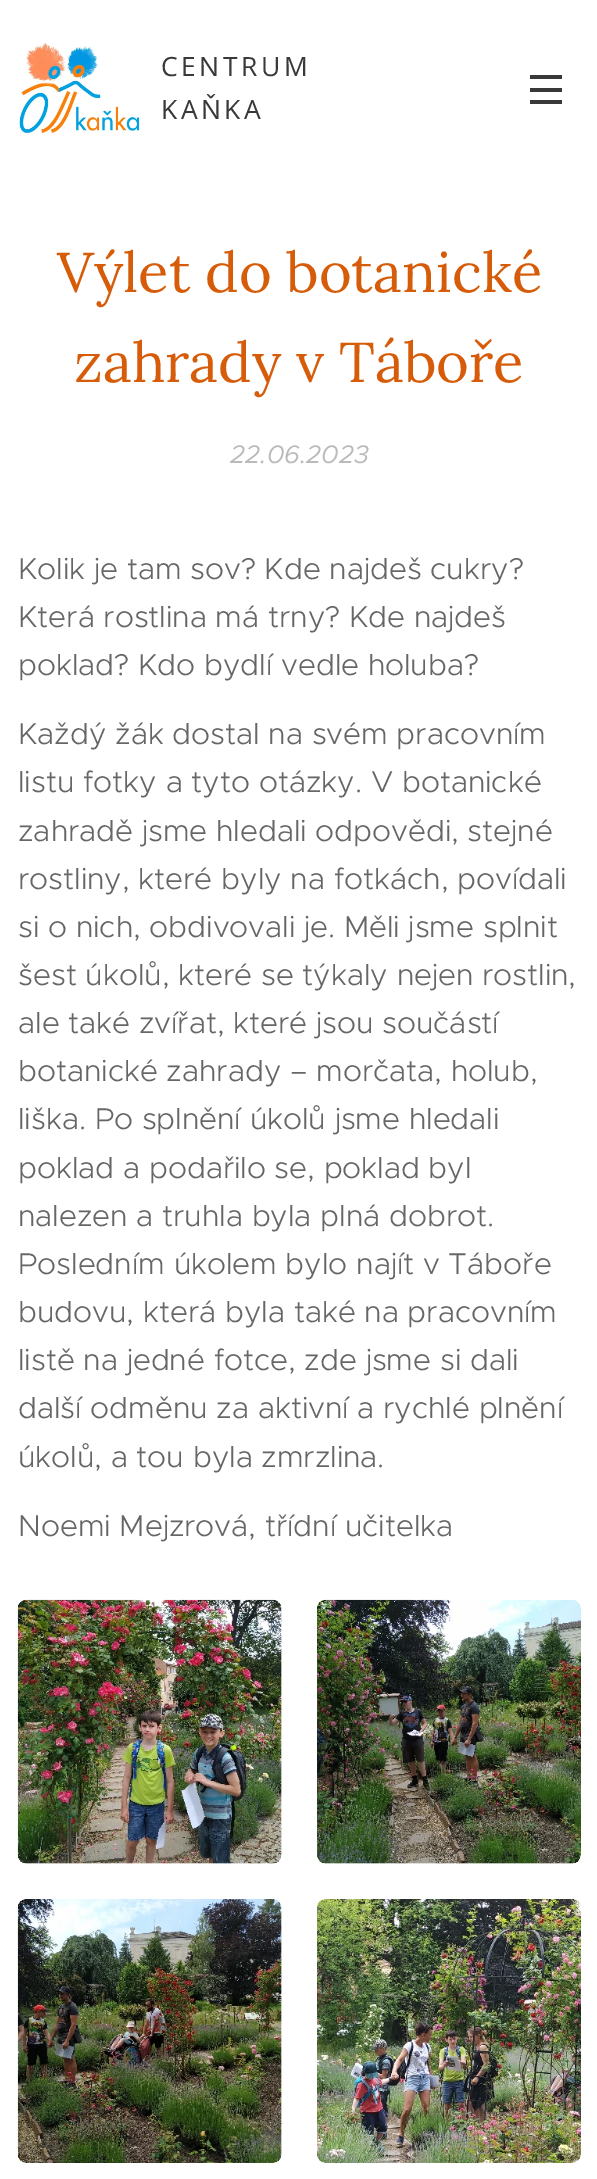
%!PS-Adobe-3.0
%%BoundingBox: 0 0 597 2179
%%LanguageLevel: 3
%%Pages: 1
%%EndComments
%%BeginProlog
/drawimage { 5 dict begin { /h /w /y /x /name } { exch def } forall
  gsave x y translate w h scale
  w h 8 [w 0 0 h 0 0] name (r) file false 3 colorimage grestore end } def
%%EndProlog
%%BeginSetup
<< /PageSize [597 2179] >> setpagedevice
%%EndSetup
%%Page: 1 1
0 2179 translate 1 -1 scale
4 setmiterlimit
1 setgray
0 0 597 2179 rectfill
(images/1.raw) 19 42 121 92 drawimage
0.224 setgray
530 88 32 4 rectfill
530 75 32 4 rectfill
530 100 32 4 rectfill
(images/2.raw) 17 1599 265 265 drawimage
(images/3.raw) 317 1599 264 265 drawimage
(images/4.raw) 17 1899 265 264 drawimage
(images/5.raw) 317 1899 264 264 drawimage
/OpenSans-Regular [26.5 0 0 -26.5 0 0] selectfont
161 76 moveto 3.5 0 (CENTRUM) ashow
161 119 moveto 3.5 0 (KAŇKA) ashow
/Lora-Regular [56 0 0 -56 0 0] selectfont
0.839 0.361 0.035 setrgbcolor
57 292 moveto (Výlet do botanické) show
74 382 moveto (zahrady v Táboře) show
/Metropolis-Italic [25.5 0 0 -25.5 0 0] selectfont
0.729 setgray
230 463 moveto (22.06.2023) show
/Metropolis-Light [30.1 0 0 -30.1 0 0] selectfont
0.4 setgray
18 579 moveto (Kolik je tam sov? Kde najdeš cukry?) show
18 627 moveto (Která rostlina má trny? Kde najdeš) show
18 675 moveto (poklad? Kdo bydlí vedle holuba?) show
18 744 moveto (Každý žák dostal na svém pracovním) show
18 792 moveto (listu fotky a tyto otázky. V botanické) show
18 841 moveto (zahradě jsme hledali odpovědi, stejné) show
18 889 moveto (rostliny, které byly na fotkách, povídali) show
18 937 moveto (si o nich, obdivovali je. Měli jsme splnit) show
18 985 moveto (šest úkolů, které se týkaly nejen rostlin,) show
18 1033 moveto (ale také zvířat, které jsou součástí) show
18 1081 moveto (botanické zahrady – morčata, holub,) show
18 1129 moveto (liška. Po splnění úkolů jsme hledali) show
18 1178 moveto (poklad a podařilo se, poklad byl) show
18 1226 moveto (nalezen a truhla byla plná dobrot.) show
18 1274 moveto (Posledním úkolem bylo najít v Táboře) show
18 1322 moveto (budovu, která byla také na pracovním) show
18 1370 moveto (listě na jedné fotce, zde jsme si dali) show
18 1418 moveto (další odměnu za aktivní a rychlé plnění) show
18 1467 moveto (úkolů, a tou byla zmrzlina.) show
18 1536 moveto (Noemi Mejzrová, třídní učitelka) show
showpage
%%EOF
